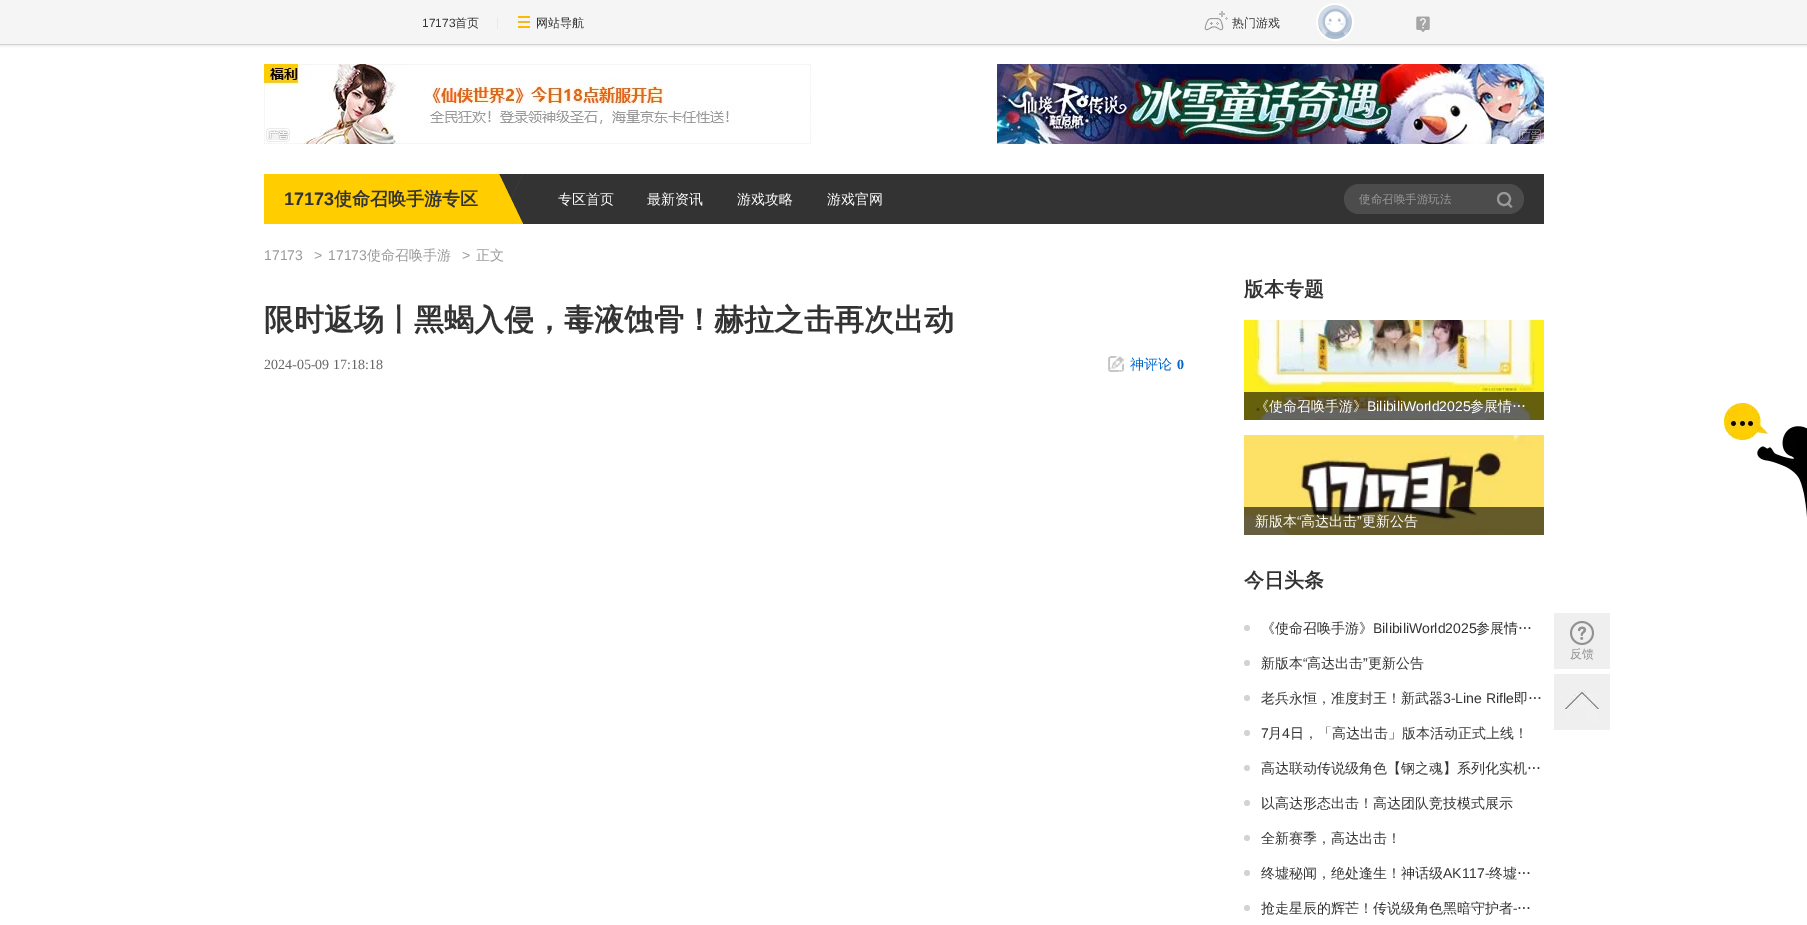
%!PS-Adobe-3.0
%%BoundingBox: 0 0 1807 925
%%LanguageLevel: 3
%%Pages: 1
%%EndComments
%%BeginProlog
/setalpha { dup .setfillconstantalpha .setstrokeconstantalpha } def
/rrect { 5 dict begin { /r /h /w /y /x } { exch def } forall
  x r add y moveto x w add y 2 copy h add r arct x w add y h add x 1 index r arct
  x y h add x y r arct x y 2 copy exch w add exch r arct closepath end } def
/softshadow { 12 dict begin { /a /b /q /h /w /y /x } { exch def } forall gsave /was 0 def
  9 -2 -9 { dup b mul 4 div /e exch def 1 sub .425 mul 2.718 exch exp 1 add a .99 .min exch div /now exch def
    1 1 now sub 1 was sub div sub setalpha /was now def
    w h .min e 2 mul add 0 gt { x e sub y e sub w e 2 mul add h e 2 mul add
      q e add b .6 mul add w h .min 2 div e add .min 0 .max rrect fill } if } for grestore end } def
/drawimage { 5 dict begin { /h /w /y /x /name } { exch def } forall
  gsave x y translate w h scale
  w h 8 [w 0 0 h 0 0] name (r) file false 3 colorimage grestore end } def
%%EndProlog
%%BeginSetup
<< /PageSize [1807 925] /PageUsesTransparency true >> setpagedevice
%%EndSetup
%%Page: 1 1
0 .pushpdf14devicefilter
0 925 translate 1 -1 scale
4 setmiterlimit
1 setgray
0 0 1807 925 rectfill
0.91 0.902 0.902 setrgbcolor
0 1 1807 45 0 1 1 softshadow
0.961 setgray
0 0 1807 44 rectfill
0.824 setgray
0 44 1807 1 rectfill
0.91 setgray
497 17 1 12 rectfill
(images/1.raw) 518 16 12 12 drawimage
(images/2.raw) 1204 11 24 20 drawimage
1 setgray
2 setlinewidth
newpath 1335 22 18 0 360 arc closepath stroke
(images/3.raw) 1318 5 34 34 drawimage
(images/4.raw) 1416 16 14 16 drawimage
(images/5.raw) 264 64 547 80 drawimage
(images/6.raw) 266 128 24 14 drawimage
(images/7.raw) 997 64 547 80 drawimage
(images/8.raw) 1518 128 24 14 drawimage
0.2 setgray
523 174 1021 50 rectfill
1 0.804 0 setrgbcolor
264 174 259 50 rectfill
0.2 setgray
newpath 499 174 moveto 523 174 lineto 511 199 lineto closepath fill
newpath 523 174 moveto 523 224 lineto 511 199 lineto closepath fill
1 0.804 0 setrgbcolor
newpath 523 224 moveto 499 224 lineto 511 199 lineto closepath fill
newpath 499 224 moveto 499 174 lineto 511 199 lineto closepath fill
0.302 0.298 0.298 setrgbcolor
1344 184 180 30 15 rrect fill
0.6 setgray
newpath 1504 199 6 0 360 arc closepath stroke
newpath 1506.5 203.5 moveto 1508 202 lineto 1512.5 206.5 lineto 1511 208 lineto closepath fill
(images/9.raw) 1108 356 16 16 drawimage
(images/10.raw) 1244 320 300 100 drawimage
0.6 setalpha
0 setgray
1244 392 300 28 rectfill
1 setalpha
(images/11.raw) 1244 435 300 100 drawimage
0.6 setalpha
1244 507 300 28 rectfill
1 setalpha
0.827 setgray
newpath 1247 628 3 0 360 arc closepath fill
newpath 1247 663 3 0 360 arc closepath fill
newpath 1247 698 3 0 360 arc closepath fill
newpath 1247 733 3 0 360 arc closepath fill
newpath 1247 768 3 0 360 arc closepath fill
newpath 1247 803 3 0 360 arc closepath fill
newpath 1247 838 3 0 360 arc closepath fill
newpath 1247 873 3 0 360 arc closepath fill
newpath 1247 908 3 0 360 arc closepath fill
(images/12.raw) 1724 403 83 114 drawimage
0.937 setgray
1554 613 56 56 rectfill
(images/13.raw) 1570 621 24 24 drawimage
(images/14.raw) 1554 674 56 56 drawimage
/LiberationSans-Regular [12 0 0 -12 0 0] selectfont
0.2 setgray
422 27 moveto (17173) show
/WenQuanYiZenHei-Medium [12 0 0 -12 0 0] selectfont
455 27 moveto (首页) show
536 27 moveto (网站导航) show
1232 27 moveto (热门游戏) show
/LiberationSans-Bold [18 0 0 -18 0 0] selectfont
284 205 moveto (17173) show
/WenQuanYiZenHei-Bold [18 0 0 -18 0 0] selectfont
334 205 moveto (使命召唤手游专区) show
/WenQuanYiZenHei-Medium [14 0 0 -14 0 0] selectfont
1 setgray
558 204 moveto (专区首页) show
647 204 moveto (最新资讯) show
737 204 moveto (游戏攻略) show
827 204 moveto (游戏官网) show
/WenQuanYiZenHei-Medium [11.5 0 0 -11.5 0 0] selectfont
0.6 setgray
1359 203 moveto (使命召唤手游玩法) show
/LiberationSans-Regular [14 0 0 -14 0 0] selectfont
264 260 moveto (17173) show
314 260 moveto (>) show
328 260 moveto (17173) show
/WenQuanYiZenHei-Medium [14 0 0 -14 0 0] selectfont
367 260 moveto (使命召唤手游) show
/LiberationSans-Regular [14 0 0 -14 0 0] selectfont
462 260 moveto (>) show
/WenQuanYiZenHei-Medium [14 0 0 -14 0 0] selectfont
476 260 moveto (正文) show
/WenQuanYiZenHei-Bold [30 0 0 -30 0 0] selectfont
0.2 setgray
264 330 moveto (限时返场丨黑蝎入侵，毒液蚀骨！赫拉之击再次出动) show
/LiberationSerif-Regular [14 0 0 -14 0 0] selectfont
0.4 setgray
264 369 moveto (2024-05-09 17:18:18) show
/WenQuanYiZenHei-Medium [14 0 0 -14 0 0] selectfont
0 0.4 0.8 setrgbcolor
1130 369 moveto (神评论) show
/LiberationSerif-Bold [14 0 0 -14 0 0] selectfont
1177 369 moveto (0) show
/WenQuanYiZenHei-Bold [20 0 0 -20 0 0] selectfont
0.2 setgray
1244 296 moveto (版本专题) show
/WenQuanYiZenHei-Medium [14 0 0 -14 0 0] selectfont
1 setgray
1255 411 moveto (《使命召唤手游》) show
/LiberationSans-Regular [14 0 0 -14 0 0] selectfont
1367 411 moveto (BilibiliWorld2025) show
/WenQuanYiZenHei-Medium [14 0 0 -14 0 0] selectfont
1470 411 moveto (参展情…) show
1255 526 moveto (新版本) show
/LiberationSans-Regular [14 0 0 -14 0 0] selectfont
1297 526 moveto (“) show
/WenQuanYiZenHei-Medium [14 0 0 -14 0 0] selectfont
1301 526 moveto (高达出击) show
/LiberationSans-Regular [14 0 0 -14 0 0] selectfont
1357 526 moveto (”) show
/WenQuanYiZenHei-Medium [14 0 0 -14 0 0] selectfont
1362 526 moveto (更新公告) show
/WenQuanYiZenHei-Bold [20 0 0 -20 0 0] selectfont
0.2 setgray
1244 587 moveto (今日头条) show
/WenQuanYiZenHei-Medium [14 0 0 -14 0 0] selectfont
1261 633 moveto (《使命召唤手游》) show
/LiberationSans-Regular [14 0 0 -14 0 0] selectfont
1373 633 moveto (BilibiliWorld2025) show
/WenQuanYiZenHei-Medium [14 0 0 -14 0 0] selectfont
1476 633 moveto (参展情…) show
1261 668 moveto (新版本) show
/LiberationSans-Regular [14 0 0 -14 0 0] selectfont
1303 668 moveto (“) show
/WenQuanYiZenHei-Medium [14 0 0 -14 0 0] selectfont
1307 668 moveto (高达出击) show
/LiberationSans-Regular [14 0 0 -14 0 0] selectfont
1363 668 moveto (”) show
/WenQuanYiZenHei-Medium [14 0 0 -14 0 0] selectfont
1368 668 moveto (更新公告) show
1261 703 moveto (老兵永恒，准度封王！新武器) show
/LiberationSans-Regular [14 0 0 -14 0 0] selectfont
1443 703 moveto (3-Line Rifle) show
/WenQuanYiZenHei-Medium [14 0 0 -14 0 0] selectfont
1514 703 moveto (即…) show
/LiberationSans-Regular [14 0 0 -14 0 0] selectfont
1261 738 moveto (7) show
/WenQuanYiZenHei-Medium [14 0 0 -14 0 0] selectfont
1268 738 moveto (月) show
/LiberationSans-Regular [14 0 0 -14 0 0] selectfont
1282 738 moveto (4) show
/WenQuanYiZenHei-Medium [14 0 0 -14 0 0] selectfont
1290 738 moveto (日，「高达出击」版本活动正式上线！) show
1261 773 moveto (高达联动传说级角色【钢之魂】系列化实机…) show
1261 808 moveto (以高达形态出击！高达团队竞技模式展示) show
1261 843 moveto (全新赛季，高达出击！) show
1261 878 moveto (终墟秘闻，绝处逢生！神话级) show
/LiberationSans-Regular [14 0 0 -14 0 0] selectfont
1443 878 moveto (AK117-) show
/WenQuanYiZenHei-Medium [14 0 0 -14 0 0] selectfont
1489 878 moveto (终墟…) show
1261 913 moveto (抢走星辰的辉芒！传说级角色黑暗守护者) show
/LiberationSans-Regular [14 0 0 -14 0 0] selectfont
1513 913 moveto (-) show
/WenQuanYiZenHei-Medium [14 0 0 -14 0 0] selectfont
1517 913 moveto (…) show
/WenQuanYiZenHei-Medium [12 0 0 -12 0 0] selectfont
0.573 setgray
1570 658 moveto (反馈) show
.poppdf14devicefilter showpage
%%EOF
